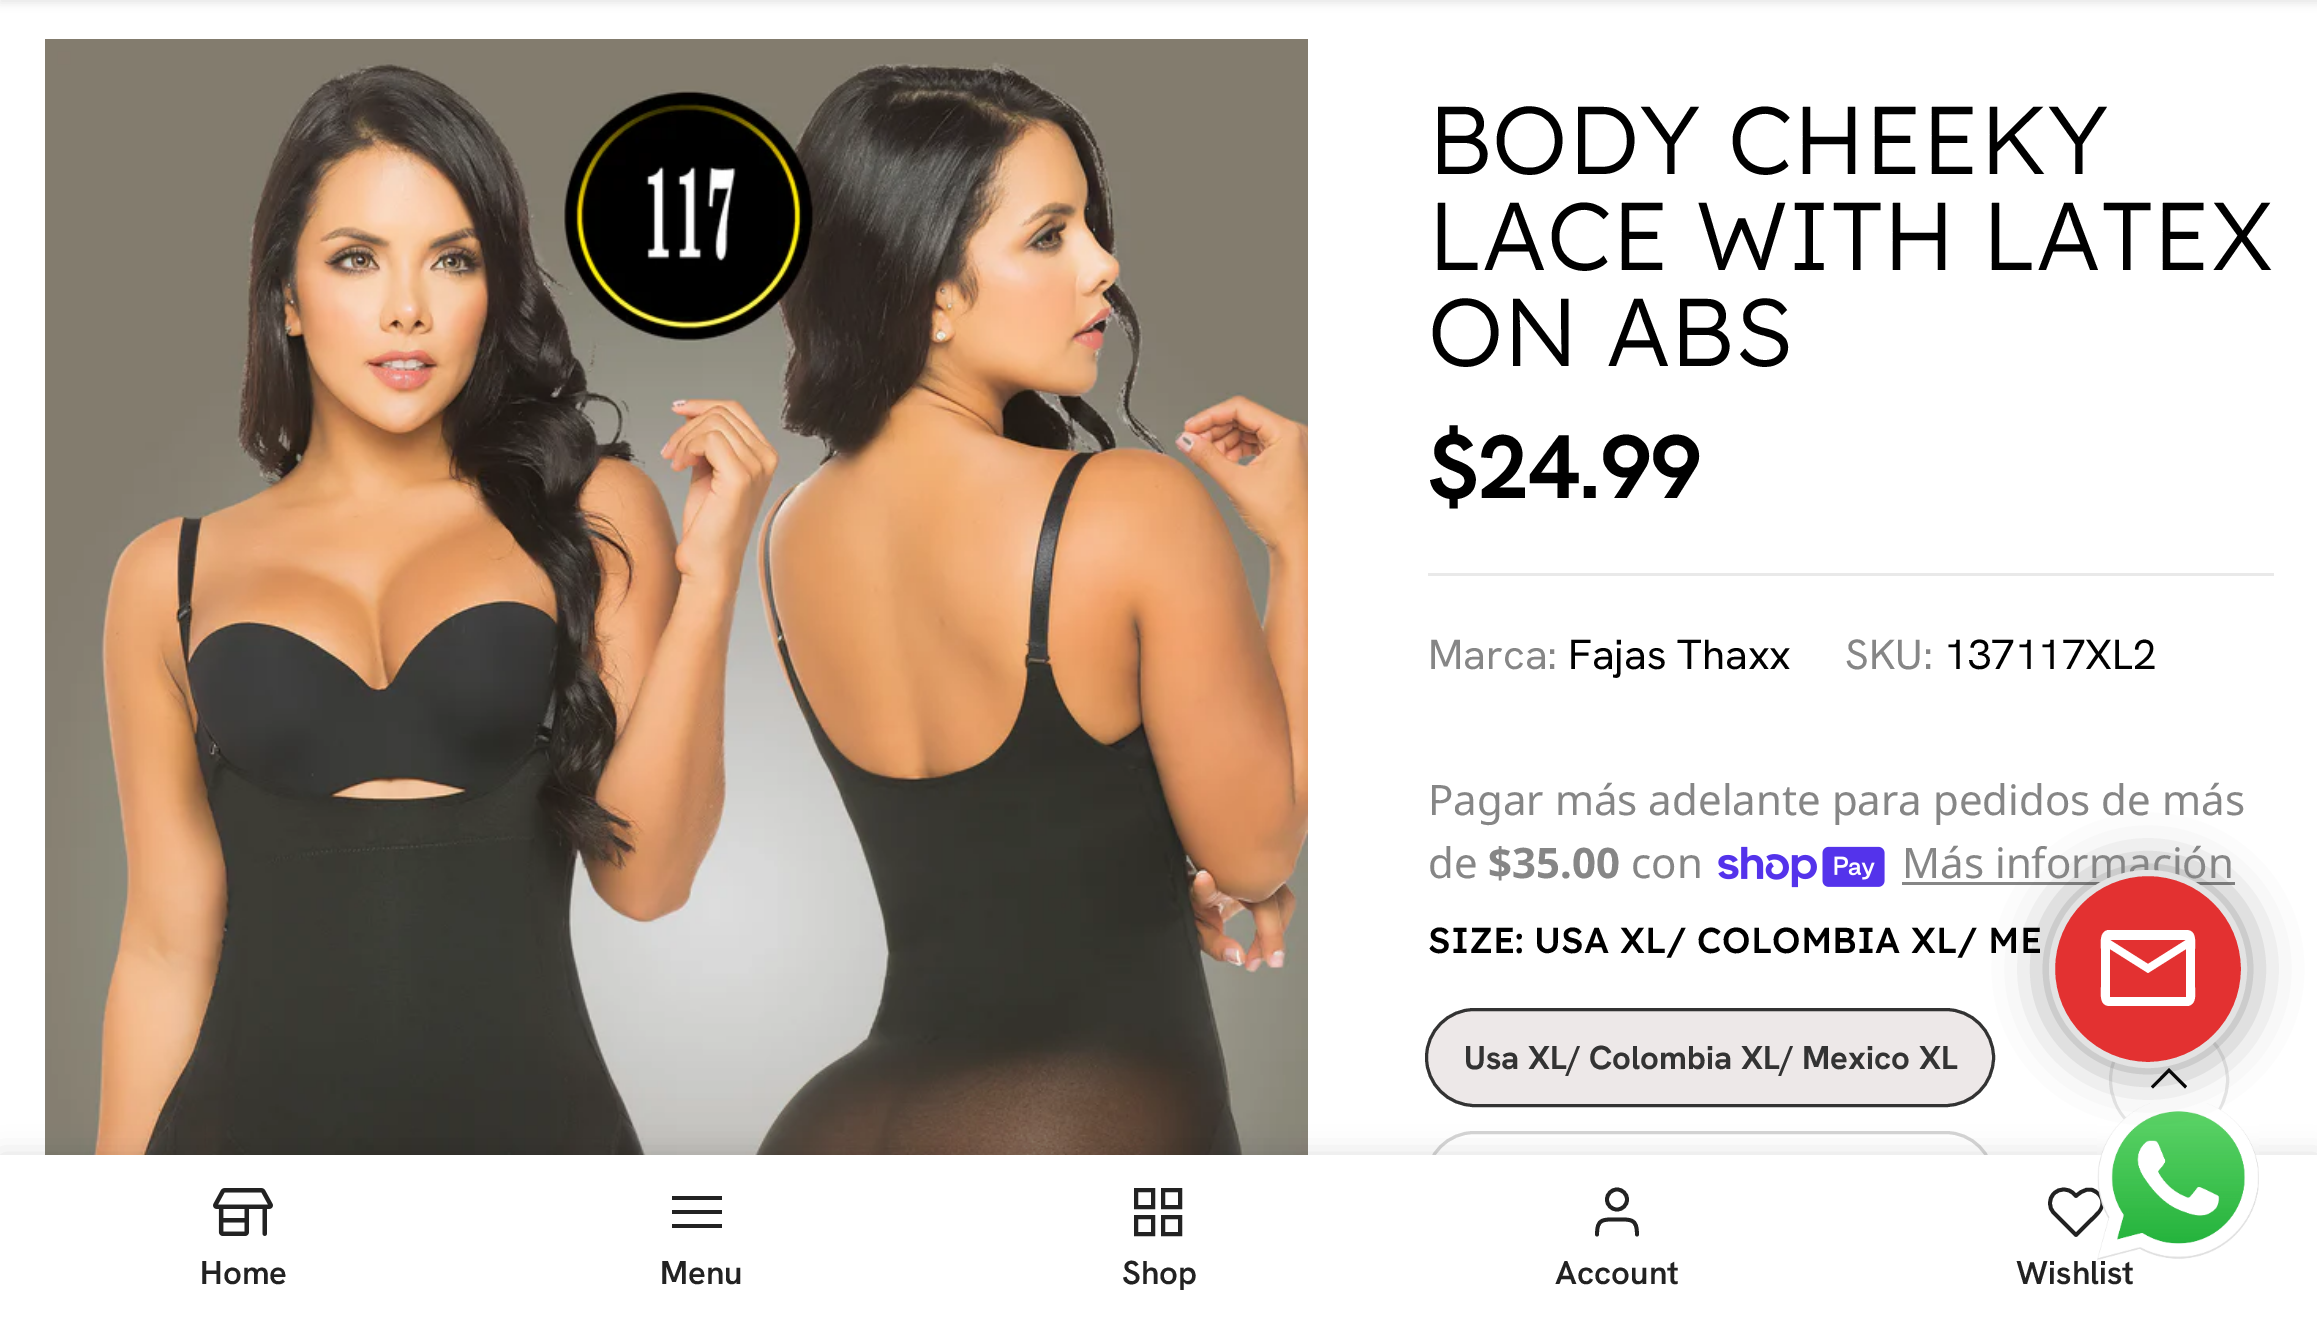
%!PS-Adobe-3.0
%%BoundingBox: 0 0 2317 1318
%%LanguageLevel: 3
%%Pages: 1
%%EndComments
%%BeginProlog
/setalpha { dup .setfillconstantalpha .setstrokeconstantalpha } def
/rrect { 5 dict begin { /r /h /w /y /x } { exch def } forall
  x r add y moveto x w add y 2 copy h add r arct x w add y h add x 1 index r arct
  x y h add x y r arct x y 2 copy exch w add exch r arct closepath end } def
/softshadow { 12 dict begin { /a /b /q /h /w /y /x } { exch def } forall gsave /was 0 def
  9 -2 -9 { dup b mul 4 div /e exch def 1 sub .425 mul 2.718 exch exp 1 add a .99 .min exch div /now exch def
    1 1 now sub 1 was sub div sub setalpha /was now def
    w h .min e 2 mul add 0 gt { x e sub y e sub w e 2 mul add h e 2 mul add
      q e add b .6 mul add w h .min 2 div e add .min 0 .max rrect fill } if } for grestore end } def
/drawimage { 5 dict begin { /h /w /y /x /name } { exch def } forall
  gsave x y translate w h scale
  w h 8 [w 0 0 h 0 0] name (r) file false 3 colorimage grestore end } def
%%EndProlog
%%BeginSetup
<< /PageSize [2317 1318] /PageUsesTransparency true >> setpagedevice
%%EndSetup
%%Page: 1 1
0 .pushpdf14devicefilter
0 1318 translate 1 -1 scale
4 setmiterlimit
1 setgray
0 0 2317 1318 rectfill
0 setgray
0 -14 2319 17 0 4.5 0.1 softshadow
(images/1.raw) 45 39 1263 1116 drawimage
0.914 setgray
1428 573 846 3 rectfill
(images/2.raw) 1718 846 167 42 drawimage
0.525 setgray
1902 882 333 3 rectfill
0.929 0.91 0.91 setrgbcolor
1426.5 1009.5 567 96 48 rrect gsave fill grestore
0.2 setgray
3 setlinewidth
stroke
0.831 setgray
1426.5 1132.5 567 96 48 rrect stroke
0 setgray
0 1155 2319 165 0 13.5 0.12 softshadow
1 setgray
newpath 2169 1080 58.5 0 360 arc closepath gsave fill grestore
0.902 setgray
stroke
0 setgray
newpath 2171.5 1070.5 moveto 2169 1068 lineto 2151 1086.5 lineto 2153 1088.5 lineto 2169 1072.5 lineto 2185 1088.5 lineto 2187 1086 lineto 2178 1077 lineto closepath fill
1 setgray
0 1155 2317 163 rectfill
0.133 setgray
3.8 setlinewidth
1 setlinecap
1 setlinejoin
newpath 2098 1193.5 moveto 2090.5 1186 2082.5 1190 2076 1196 curveto 2073.5 1193.5 lineto 2068 1188 2059.5 1188 2054 1193.5 curveto 2048.5 1199 2048.5 1207.5 2054 1213 curveto 2076 1235 lineto 2089 1222 lineto 2095 1216 2104 1210 2102 1200.5 curveto 2101.5 1198 2100 1195.5 2098 1193.5 curveto closepath stroke
(images/3.raw) 2097 1103 162 157 drawimage
0.196 setgray
2049 870 198 198 99 25.5 0.5 softshadow
(images/4.raw) 213 1188 60 48 drawimage
0.133 setgray
672 1196 50 4 rectfill
672 1210 50 4 rectfill
672 1224 50 4 rectfill
4 setlinewidth
0 setlinecap
0 setlinejoin
1136 1190 17 17 rectstroke
1163 1190 17 17 rectstroke
1136 1217 17 17 rectstroke
1163 1217 17 17 rectstroke
3.8 setlinewidth
newpath 1617 1199.5 10 0 360 arc closepath stroke
1 setlinecap
1 setlinejoin
newpath 1637 1234.5 moveto 1637 1218.5 1631 1219.5 1617 1219.5 curveto 1603 1219.5 1597 1218.5 1597 1234.5 curveto stroke
/Lexend-Light [96 0 0 -96 0 0] selectfont
0 setgray
1428 174 moveto (BODY CHEEKY) show
1428 270 moveto (LACE WITH LATEX) show
1428 366 moveto (ON ABS) show
/HankenGrotesk-Bold [90 0 0 -90 0 0] selectfont
1428 498 moveto ($24.99) show
/HankenGrotesk-Regular [42 0 0 -42 0 0] selectfont
0.525 setgray
1428 669 moveto (Marca:) show
0 setgray
1568 669 moveto (Fajas Thaxx) show
0.525 setgray
1845 669 moveto (SKU:) show
0 setgray
1944 669 moveto (137117XL2) show
/NotoSans-Regular [42 0 0 -42 0 0] selectfont
0.525 setgray
1428 815 moveto (Pagar más adelante para pedidos de más) show
1428 878 moveto (de) show
/NotoSans-Bold [42 0 0 -42 0 0] selectfont
1488 878 moveto ($35.00) show
/NotoSans-Regular [42 0 0 -42 0 0] selectfont
1631 878 moveto (con) show
1902 878 moveto (Más información) show
/Lexend-Medium [36 0 0 -36 0 0] selectfont
0 setgray
1428 953 moveto (SIZE: USA XL/ COLOMBIA XL/ ME) show
/HankenGrotesk-Bold [33 0 0 -33 0 0] selectfont
0.2 setgray
1464 1069 moveto (Usa XL/ Colombia XL/ Mexico XL) show
0.89 0.192 0.192 setrgbcolor
newpath 2148 969 96 0 360 arc closepath gsave fill grestore
0.89 setgray
6 setlinewidth
0 setlinecap
0 setlinejoin
stroke
1 setgray
newpath 2186 930 moveto 2197 930 2195 942 2195 949 curveto 2195 987 lineto 2195 994 2197 1004 2188 1006 curveto 2110 1006 lineto 2099 1006 2101 994 2101 987 curveto 2101 949 lineto 2101 943 2099 932 2108 930 curveto closepath 2186 997 moveto 2186 949 lineto 2148 973 lineto 2110 949 lineto 2110 997 lineto closepath 2148 964 moveto 2186 940 lineto 2110 940 lineto closepath fill
/HankenGrotesk-SemiBold [33 0 0 -33 0 0] selectfont
0.133 setgray
200 1284 moveto (Home) show
660 1284 moveto (Menu) show
gsave
960 1257 399 33 rectclip
1122 1284 moveto (Shop) show
grestore
1555 1284 moveto (Account) show
2016 1284 moveto (Wishlist) show
.poppdf14devicefilter showpage
%%EOF
